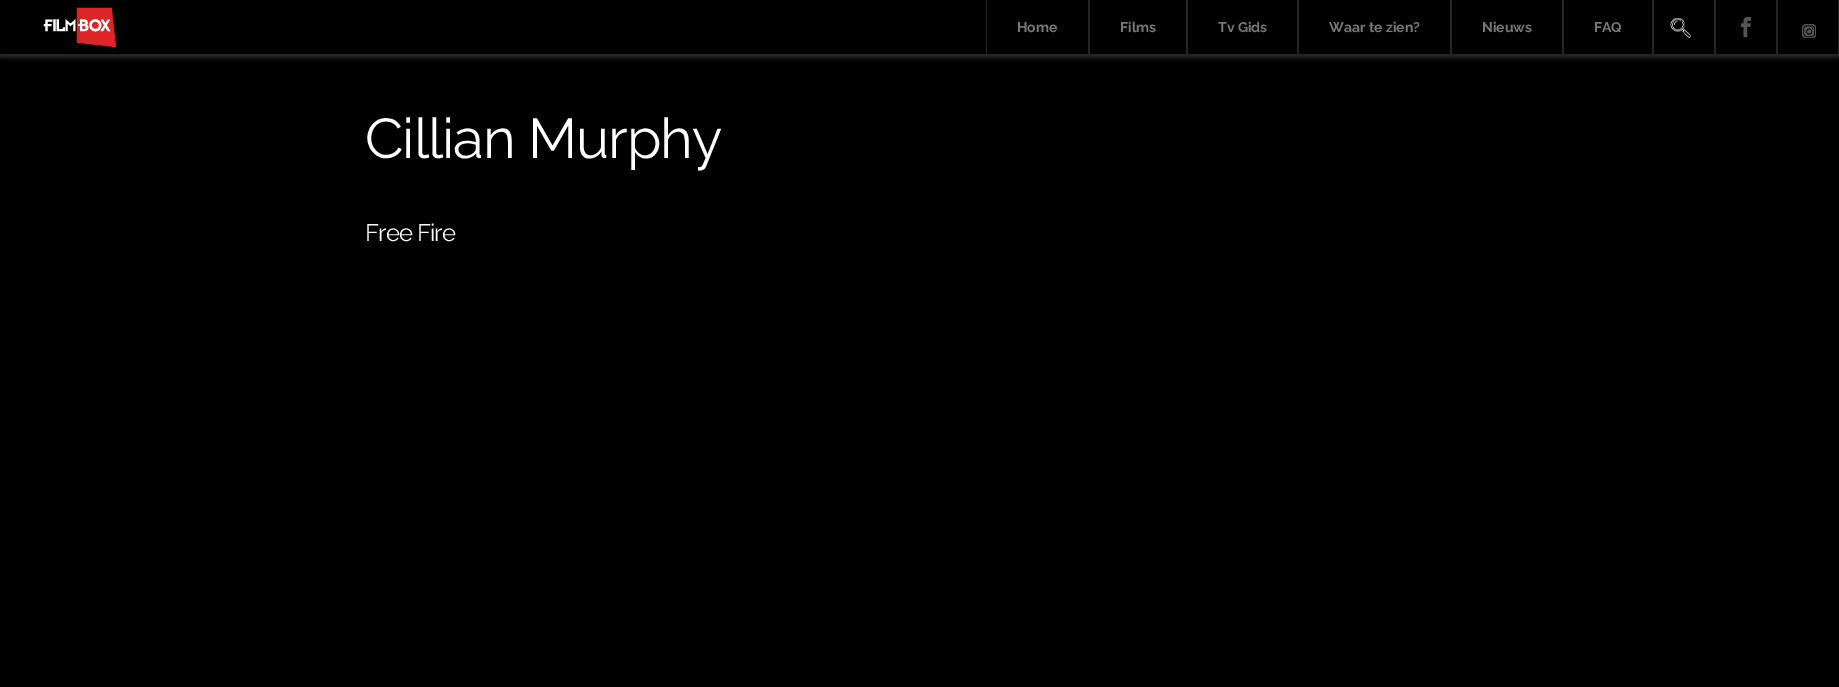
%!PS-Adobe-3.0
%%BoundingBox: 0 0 1839 687
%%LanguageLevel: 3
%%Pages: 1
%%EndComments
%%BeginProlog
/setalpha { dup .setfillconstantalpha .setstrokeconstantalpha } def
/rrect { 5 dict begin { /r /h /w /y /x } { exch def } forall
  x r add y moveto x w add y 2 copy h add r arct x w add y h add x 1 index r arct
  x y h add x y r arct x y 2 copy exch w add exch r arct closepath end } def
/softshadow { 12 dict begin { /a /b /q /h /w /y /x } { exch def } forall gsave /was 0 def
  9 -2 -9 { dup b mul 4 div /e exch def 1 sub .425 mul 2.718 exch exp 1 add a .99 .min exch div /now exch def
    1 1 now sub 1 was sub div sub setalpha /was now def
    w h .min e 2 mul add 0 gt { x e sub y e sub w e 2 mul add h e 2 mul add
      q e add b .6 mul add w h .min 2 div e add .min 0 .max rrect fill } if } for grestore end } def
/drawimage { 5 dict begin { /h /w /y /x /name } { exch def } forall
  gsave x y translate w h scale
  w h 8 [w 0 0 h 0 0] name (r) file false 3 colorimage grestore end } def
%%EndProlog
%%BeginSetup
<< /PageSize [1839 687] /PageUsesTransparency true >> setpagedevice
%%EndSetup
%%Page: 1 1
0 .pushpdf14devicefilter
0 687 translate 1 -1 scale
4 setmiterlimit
0 setgray
0 0 1839 687 rectfill
gsave
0 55 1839 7 rectclip
0.2 setgray
0 2 1839 55 0 2.5 1 softshadow
grestore
0.145 setgray
0 54 1839 1 rectfill
(images/1.raw) 43 7 74 41 drawimage
1088 0 2 55 rectfill
986 0 1 55 rectfill
1186 0 2 55 rectfill
1297 0 2 55 rectfill
1450 0 2 55 rectfill
1562 0 2 55 rectfill
1652 0 2 55 rectfill
(images/2.raw) 1670 18 21 20 drawimage
1714 0 2 55 rectfill
(images/3.raw) 1741 17 10 20 drawimage
1776 0 2 55 rectfill
(images/4.raw) 1802 24 14 14 drawimage
1838 0 1 55 rectfill
/Raleway-Bold [14 0 0 -14 0 0] selectfont
0.467 setgray
1017 32 moveto (Home) show
1120 32 moveto (Films) show
1218 32 moveto (Tv Gids) show
1329 32 moveto (Waar te zien?) show
1482 32 moveto (Nieuws) show
1594 32 moveto (FAQ) show
/Raleway-Regular [56 0 0 -56 0 0] selectfont
1 setgray
365 158 moveto -1 0 (Cillian Murphy) ashow
/Raleway-Regular [24 0 0 -24 0 0] selectfont
365 241 moveto -1 0 (Free Fire) ashow
.poppdf14devicefilter showpage
%%EOF
